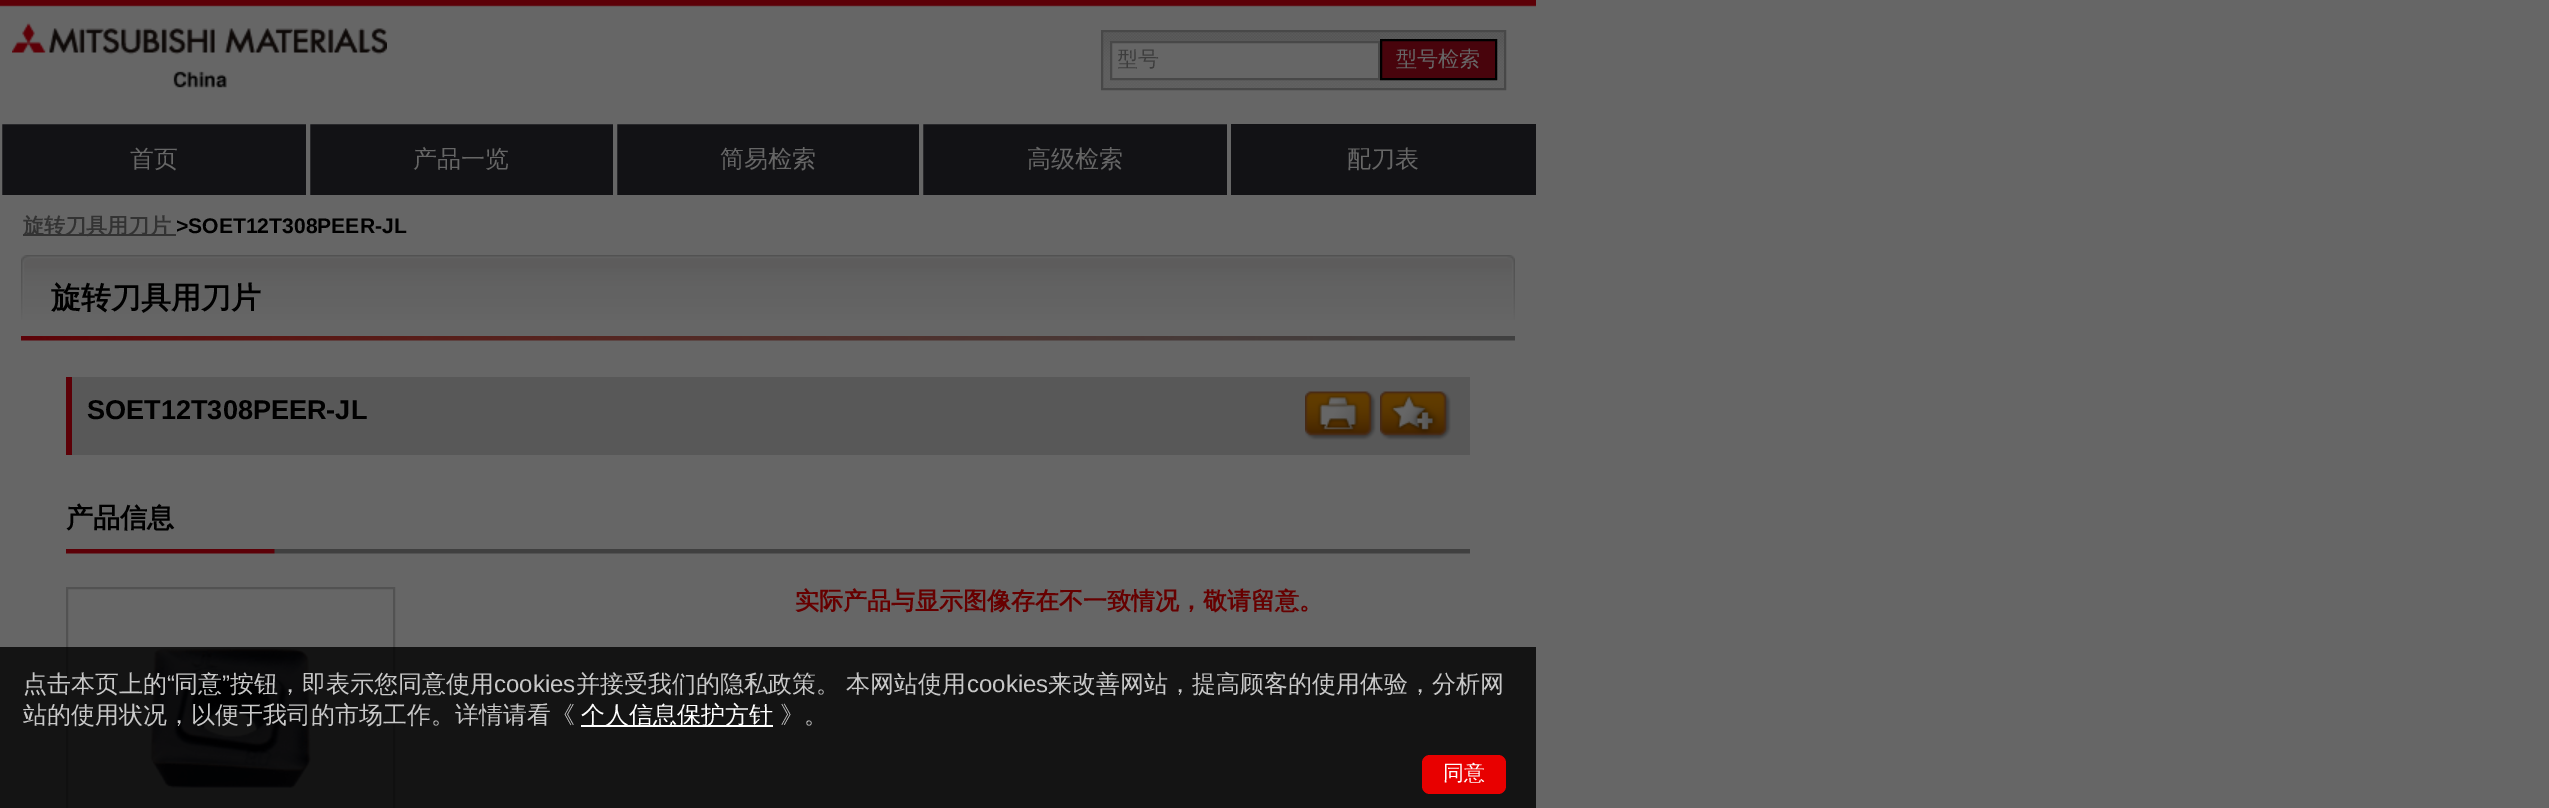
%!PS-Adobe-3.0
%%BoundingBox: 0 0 2549 808
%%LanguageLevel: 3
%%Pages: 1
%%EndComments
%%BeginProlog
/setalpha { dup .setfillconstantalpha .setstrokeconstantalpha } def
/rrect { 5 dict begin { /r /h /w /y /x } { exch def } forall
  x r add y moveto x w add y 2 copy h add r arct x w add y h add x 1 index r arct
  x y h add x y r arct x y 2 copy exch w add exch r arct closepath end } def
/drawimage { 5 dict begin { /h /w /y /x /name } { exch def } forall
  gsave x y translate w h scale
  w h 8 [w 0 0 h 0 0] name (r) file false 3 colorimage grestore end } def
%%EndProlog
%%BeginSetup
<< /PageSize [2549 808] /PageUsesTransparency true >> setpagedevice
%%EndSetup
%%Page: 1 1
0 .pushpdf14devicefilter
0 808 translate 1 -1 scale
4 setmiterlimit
0.4 setgray
0 0 2549 808 rectfill
(images/1.raw) 0 0 1536 7 drawimage
(images/2.raw) 12 22 375 66 drawimage
(images/3.raw) 1103 32 401 56 drawimage
0.282 setgray
2 setlinewidth
1102 31 403 58 rectstroke
0.4 setgray
newpath 1111 42 moveto 1379 42 lineto 1379 79 lineto 1111 79 lineto closepath gsave fill grestore
0.282 setgray
stroke
0.282 0.016 0.047 setrgbcolor
newpath 1381 40 moveto 1496 40 lineto 1496 79 lineto 1381 79 lineto closepath gsave fill grestore
0 setgray
stroke
0.071 0.071 0.082 setrgbcolor
2 124 1534 71 rectfill
0.4 setgray
1 123 306 73 rectstroke
309 123 305 73 rectstroke
616 123 304 73 rectstroke
922 123 306 73 rectstroke
1229 122 2 75 rectfill
0.2 setgray
23 234 153 2 rectfill
(images/4.raw) 21 336 1494 5 drawimage
(images/5.raw) 21 255 1494 65 drawimage
0.345 setgray
72 377 1398 78 rectfill
0.361 0 0.027 setrgbcolor
66 377 6 78 rectfill
(images/6.raw) 1305 391 71 49 drawimage
(images/7.raw) 1380 391 71 49 drawimage
(images/8.raw) 66 549 1404 5 drawimage
0.322 setgray
67 588 327 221 rectstroke
(images/9.raw) 150 647 161 141 drawimage
0.8 setalpha
0 setgray
0 647 1536 161 rectfill
1 setalpha
1 setgray
581 725 192 2 rectfill
0.91 0 0 setrgbcolor
1422 755 84 39 8 rrect fill
gsave
1118 47 255 27 rectclip
/WenQuanYiZenHei-Medium [21 0 0 -21 0 0] selectfont
0.239 setgray
1117 66 moveto (型号) show
grestore
/WenQuanYiZenHei-Medium [21.1 0 0 -21.1 0 0] selectfont
0.4 setgray
1396 66 moveto (型号检索) show
/WenQuanYiZenHei-Medium [24 0 0 -24 0 0] selectfont
130 167 moveto (首页) show
413 167 moveto (产品一览) show
720 167 moveto (简易检索) show
1027 167 moveto (高级检索) show
1347 167 moveto (配刀表) show
/WenQuanYiZenHei-Bold [21.1 0 0 -21.1 0 0] selectfont
0.2 setgray
23 233 moveto (旋转刀具用刀片) show
/LiberationSans-Bold [21.1 0 0 -21.1 0 0] selectfont
0 setgray
176 233 moveto (>SOET12T308PEER-JL) show
/WenQuanYiZenHei-Bold [30 0 0 -30 0 0] selectfont
51 308 moveto (旋转刀具用刀片) show
/LiberationSans-Bold [27.1 0 0 -27.1 0 0] selectfont
87 419 moveto (SOET12T308PEER-JL) show
/WenQuanYiZenHei-Bold [27.1 0 0 -27.1 0 0] selectfont
66 527 moveto (产品信息) show
/WenQuanYiZenHei-Bold [24 0 0 -24 0 0] selectfont
0.4 0 0 setrgbcolor
795 609 moveto (实际产品与显示图像存在不一致情况，敬请留意。) show
/WenQuanYiZenHei-Medium [24 0 0 -24 0 0] selectfont
0.784 setgray
23 692 moveto (点击本页上的) show
/LiberationSans-Regular [24 0 0 -24 0 0] selectfont
167 692 moveto (“) show
/WenQuanYiZenHei-Medium [24 0 0 -24 0 0] selectfont
174 692 moveto (同意) show
/LiberationSans-Regular [24 0 0 -24 0 0] selectfont
222 692 moveto (”) show
/WenQuanYiZenHei-Medium [24 0 0 -24 0 0] selectfont
230 692 moveto (按钮，即表示您同意使用) show
/LiberationSans-Regular [24 0 0 -24 0 0] selectfont
494 692 moveto (cookies) show
/WenQuanYiZenHei-Medium [24 0 0 -24 0 0] selectfont
576 692 moveto -1 0 32 (并接受我们的隐私政策。 本网站使用) widthshow
/LiberationSans-Regular [24 0 0 -24 0 0] selectfont
967 692 moveto (cookies) show
/WenQuanYiZenHei-Medium [24 0 0 -24 0 0] selectfont
1048 692 moveto (来改善网站，提高顾客的使用体验，分析网) show
23 723 moveto (站的使用状况，以便于我司的市场工作。详情请看《) show
1 setgray
581 723 moveto (个人信息保护方针) show
0.784 setgray
780 723 moveto (》。) show
/WenQuanYiZenHei-Medium [21 0 0 -21 0 0] selectfont
1 setgray
1443 780 moveto (同意) show
.poppdf14devicefilter showpage
%%EOF
